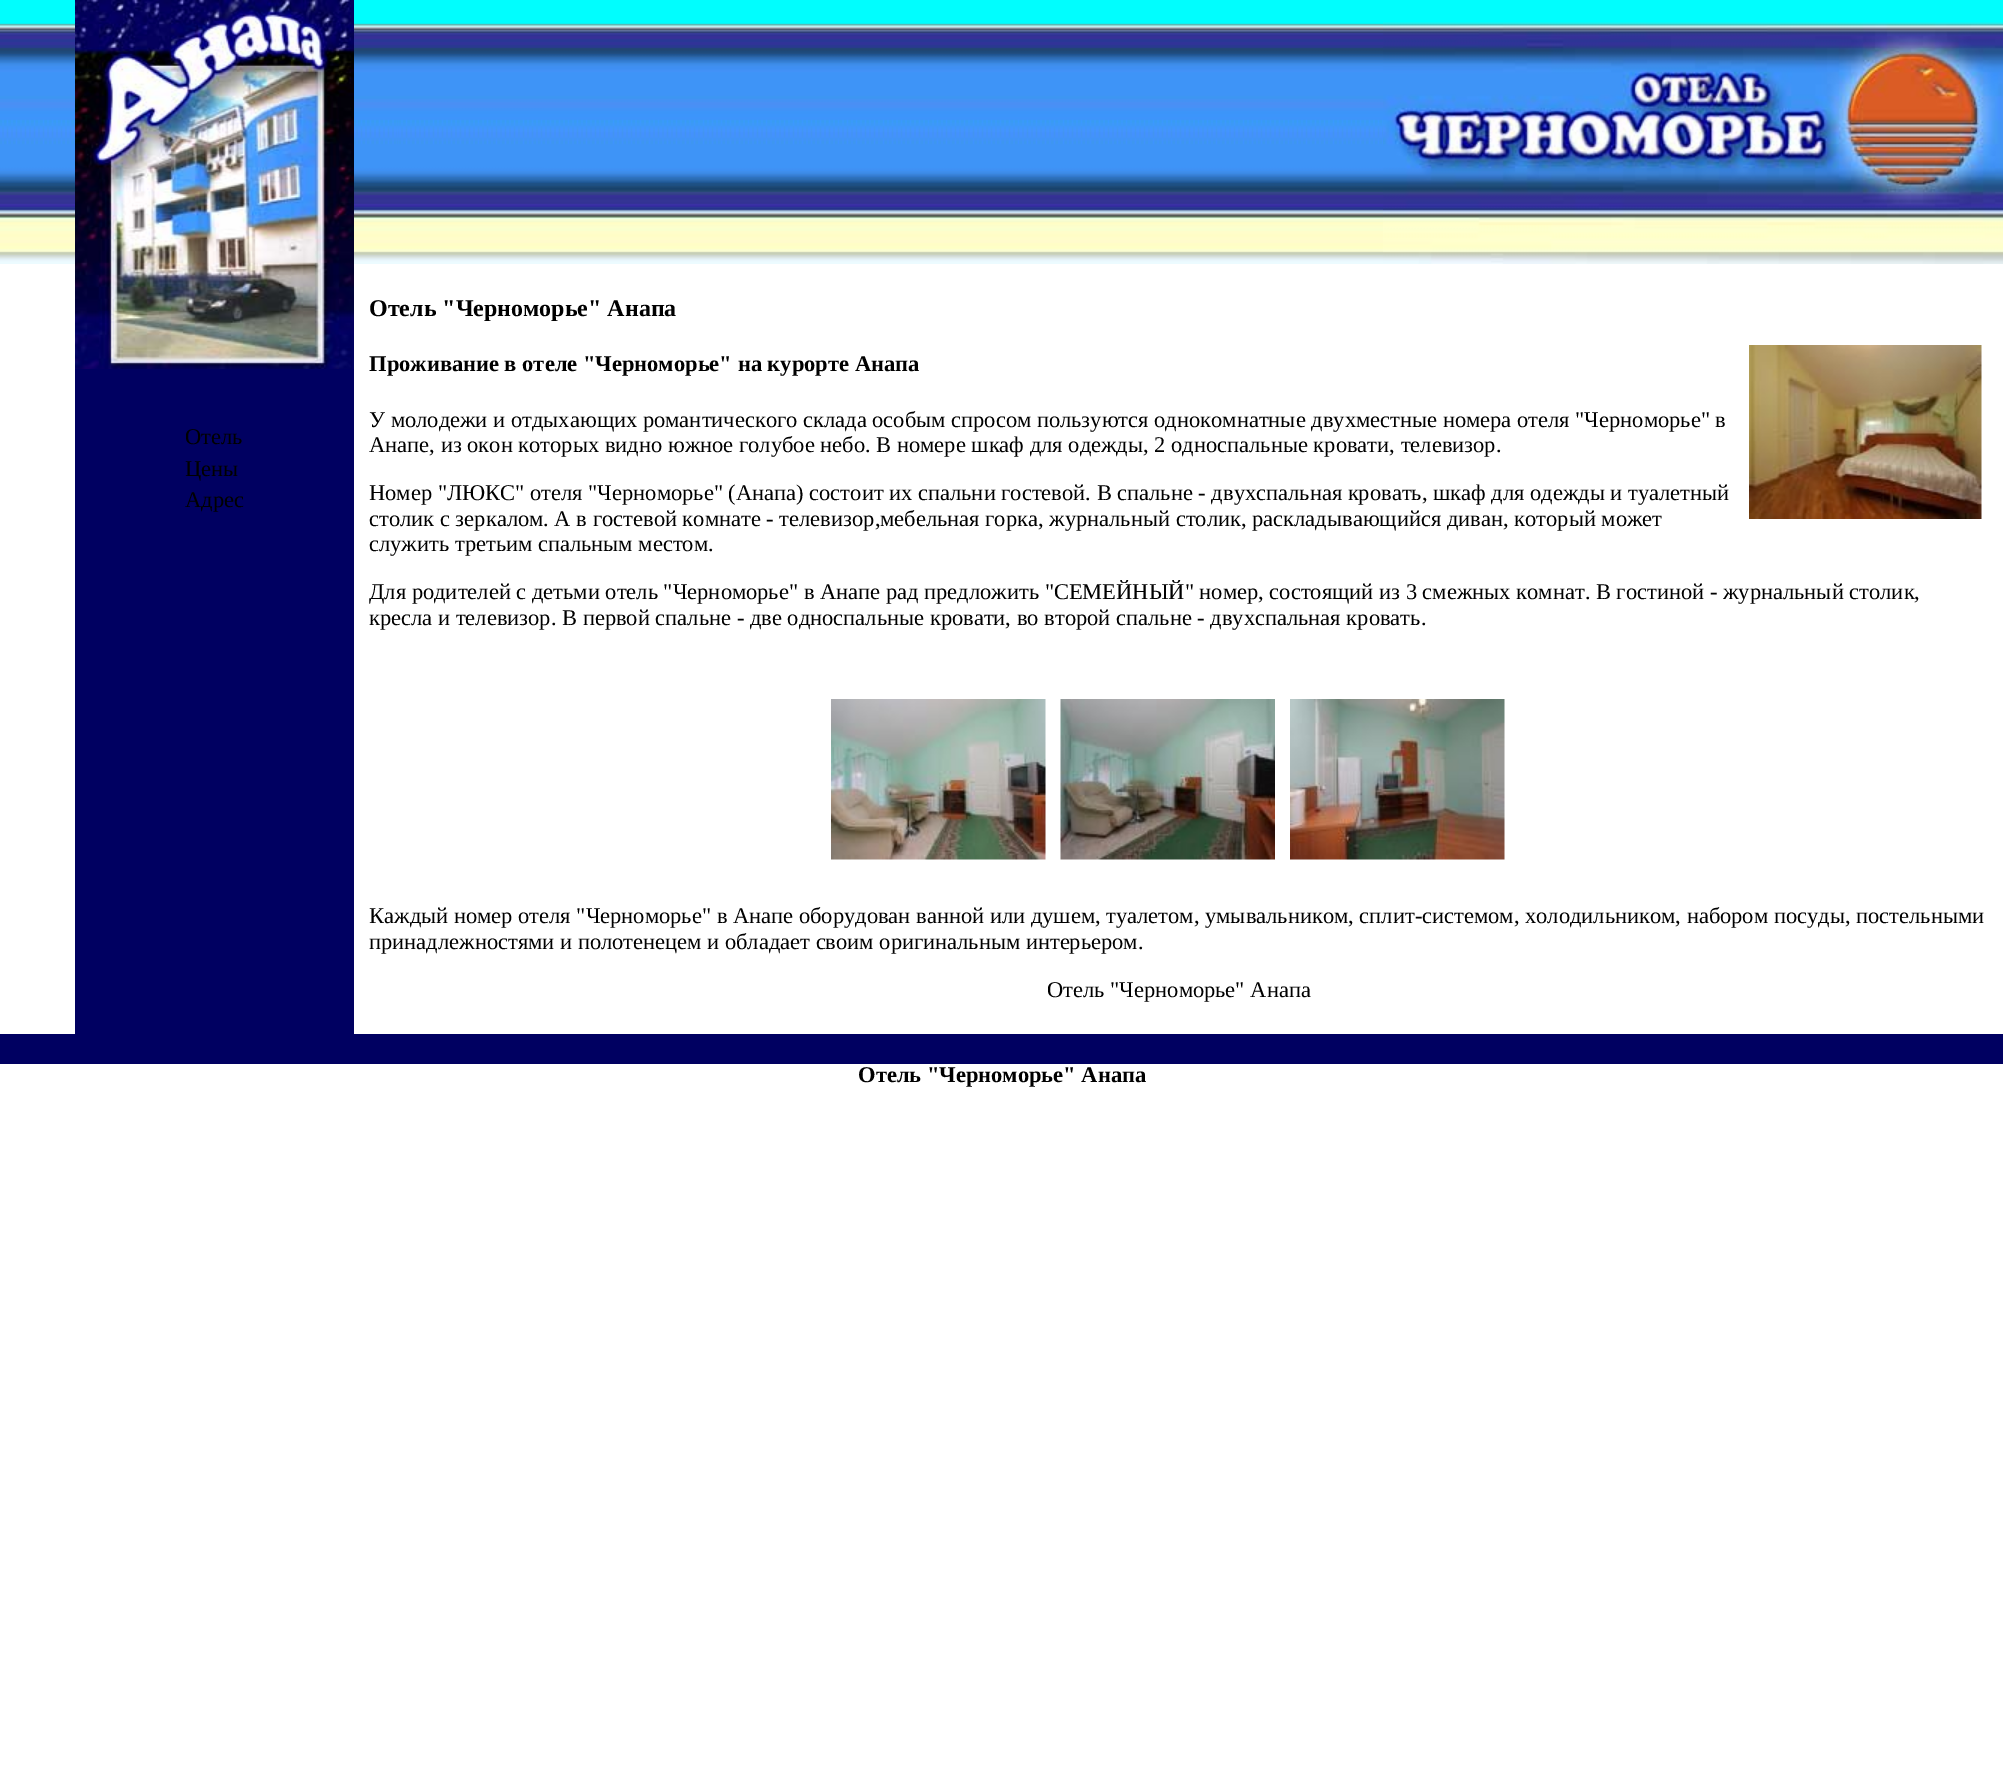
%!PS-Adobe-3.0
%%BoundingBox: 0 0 2003 1776
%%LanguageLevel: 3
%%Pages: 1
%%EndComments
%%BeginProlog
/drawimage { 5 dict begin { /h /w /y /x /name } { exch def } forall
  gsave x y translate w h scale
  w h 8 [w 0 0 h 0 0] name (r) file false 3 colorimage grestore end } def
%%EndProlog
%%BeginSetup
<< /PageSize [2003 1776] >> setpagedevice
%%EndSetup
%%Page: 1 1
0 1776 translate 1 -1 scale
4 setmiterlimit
1 setgray
0 0 2003 1776 rectfill
(images/1.raw) 0 0 75 264 drawimage
0 0 0.38 setrgbcolor
75 369 279 665 rectfill
(images/2.raw) 75 0 279 369 drawimage
(images/3.raw) 354 0 1649 264 drawimage
(images/4.raw) 1383 22 620 242 drawimage
(images/5.raw) 1749 345 233 174 drawimage
(images/6.raw) 831 699 215 161 drawimage
(images/7.raw) 1060 699 215 161 drawimage
(images/8.raw) 1290 699 215 161 drawimage
0 1034 2003 30 rectfill
/LiberationSerif-Regular [22.5 0 0 -22.5 0 0] selectfont
0 setgray
185 444 moveto (Отель) show
185 476 moveto (Цены) show
185 507 moveto (Адрес) show
/LiberationSerif-Bold [24 0 0 -24 0 0] selectfont
369 316 moveto (Отель "Черноморье" Анапа) show
/LiberationSerif-Bold [22.5 0 0 -22.5 0 0] selectfont
369 371 moveto (Проживание в отеле "Черноморье" на курорте Анапа) show
/LiberationSerif-Regular [22.5 0 0 -22.5 0 0] selectfont
369 427 moveto (У молодежи и отдыхающих романтического склада особым спросом пользуются однокомнатные двухместные номера отеля "Черноморье" в) show
369 452 moveto (Анапе, из окон которых видно южное голубое небо. В номере шкаф для одежды, 2 односпальные кровати, телевизор.) show
369 500 moveto (Номер "ЛЮКС" отеля "Черноморье" \(Анапа\) состоит их спальни гостевой. В спальне - двухспальная кровать, шкаф для одежды и туалетный) show
369 526 moveto (столик с зеркалом. А в гостевой комнате - телевизор,мебельная горка, журнальный столик, раскладывающийся диван, который может) show
369 551 moveto (служить третьим спальным местом.) show
369 599 moveto (Для родителей с детьми отель "Черноморье" в Анапе рад предложить "СЕМЕЙНЫЙ" номер, состоящий из 3 смежных комнат. В гостиной - журнальный столик,) show
369 625 moveto (кресла и телевизор. В первой спальне - две односпальные кровати, во второй спальне - двухспальная кровать.) show
369 923 moveto (Каждый номер отеля "Черноморье" в Анапе оборудован ванной или душем, туалетом, умывальником, сплит-системом, холодильником, набором посуды, постельными) show
369 949 moveto (принадлежностями и полотенецем и обладает своим оригинальным интерьером.) show
1047 997 moveto (Отель "Черноморье" Анапа) show
/LiberationSerif-Bold [22.5 0 0 -22.5 0 0] selectfont
858 1082 moveto (Отель "Черноморье" Анапа) show
showpage
%%EOF
